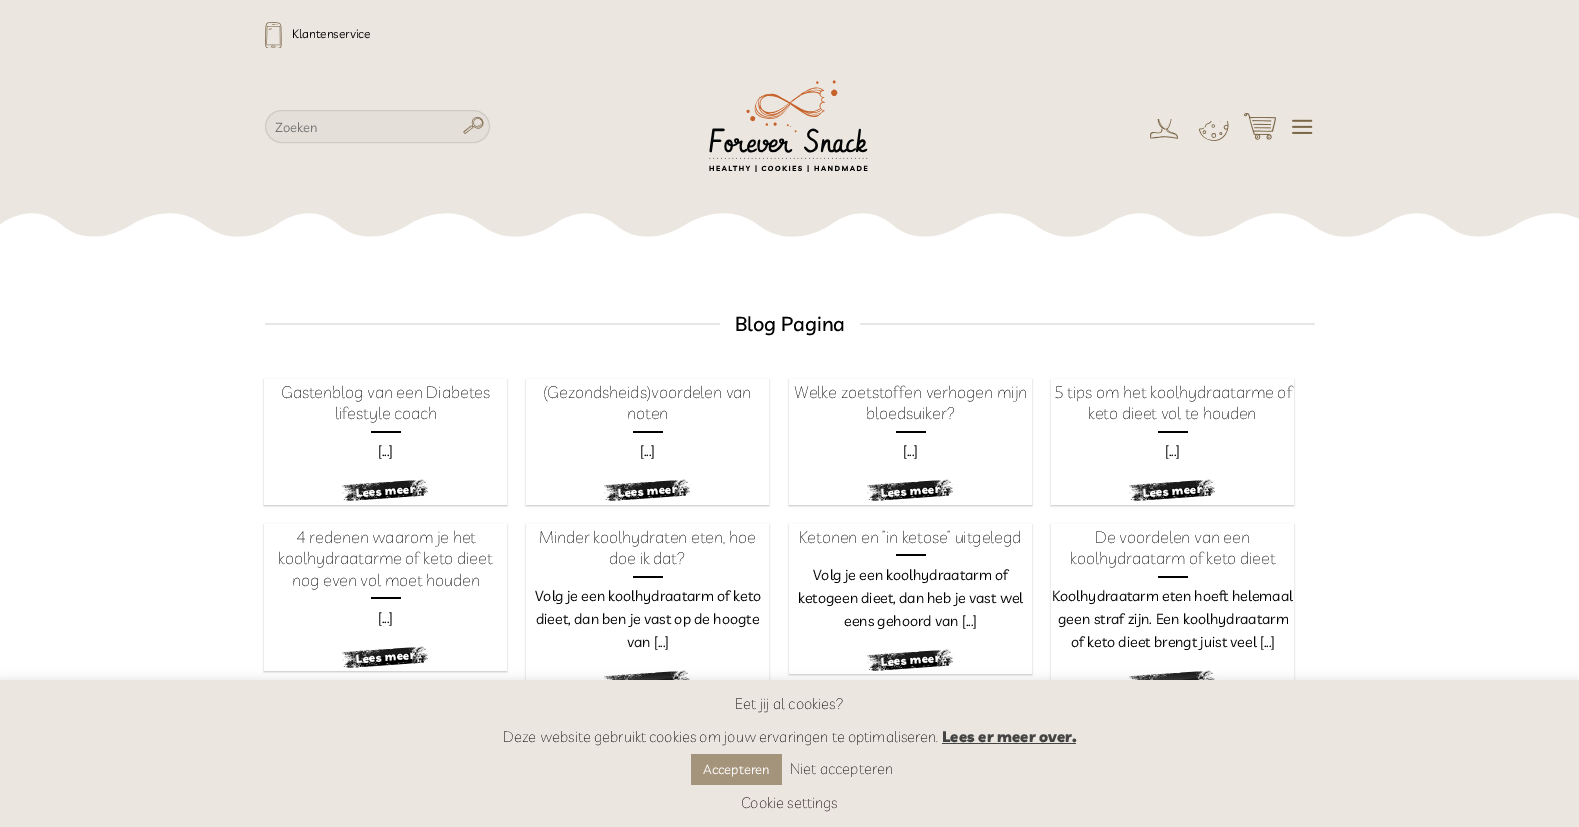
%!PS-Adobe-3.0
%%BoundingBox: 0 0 1579 827
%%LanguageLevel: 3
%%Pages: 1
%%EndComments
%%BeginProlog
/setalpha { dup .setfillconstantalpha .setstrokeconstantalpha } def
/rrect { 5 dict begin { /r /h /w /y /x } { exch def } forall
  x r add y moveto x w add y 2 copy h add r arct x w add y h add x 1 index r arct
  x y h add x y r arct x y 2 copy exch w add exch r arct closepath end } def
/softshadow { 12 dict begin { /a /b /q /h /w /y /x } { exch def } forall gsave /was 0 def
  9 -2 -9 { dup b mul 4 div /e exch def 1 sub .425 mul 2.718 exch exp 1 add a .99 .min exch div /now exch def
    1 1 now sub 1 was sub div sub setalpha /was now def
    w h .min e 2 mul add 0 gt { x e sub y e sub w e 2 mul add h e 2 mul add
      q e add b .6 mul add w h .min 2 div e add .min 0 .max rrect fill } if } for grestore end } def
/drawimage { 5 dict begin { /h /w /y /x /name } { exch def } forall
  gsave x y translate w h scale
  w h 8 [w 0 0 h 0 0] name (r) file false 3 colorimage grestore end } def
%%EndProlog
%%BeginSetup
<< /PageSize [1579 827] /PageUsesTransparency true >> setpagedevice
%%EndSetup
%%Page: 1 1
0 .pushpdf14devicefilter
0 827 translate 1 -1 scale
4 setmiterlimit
1 setgray
0 0 1579 827 rectfill
0.922 0.902 0.875 setrgbcolor
0 0 1579 183 rectfill
(images/1.raw) 265 22 17 26 drawimage
0.894 0.875 0.847 setrgbcolor
265 110 225 33 16.5 rrect fill
0.09 setalpha
0 setgray
265.5 110.5 224 32 16 rrect stroke
1 setalpha
(images/2.raw) 463 116 21 18 drawimage
(images/3.raw) 709 80 159 92 drawimage
(images/4.raw) 1150 119 28 20 drawimage
(images/5.raw) 1199 121 30 20 drawimage
(images/6.raw) 1244 113 32 27 drawimage
(images/7.raw) 1292 119 21 15 drawimage
(images/8.raw) 0 183 1579 54 drawimage
0.902 setgray
265 323 455 2 rectfill
860 323 455 2 rectfill
gsave
newpath 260 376 moveto 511 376 lineto 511 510 lineto 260 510 lineto closepath 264 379 moveto 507 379 lineto 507 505 lineto 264 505 lineto closepath eoclip newpath
0 setgray
264 380 243 126 0 1 0.24 softshadow
grestore
0 setgray
371 431 30 2 rectfill
(images/9.raw) 342 479 88 22 drawimage
0.1 setalpha
1 setgray
newpath 427 473 moveto 429 484 lineto 342 496 lineto 341 482 lineto 381 476 lineto closepath fill
gsave
newpath 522 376 moveto 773 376 lineto 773 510 lineto 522 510 lineto closepath 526 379 moveto 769 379 lineto 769 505 lineto 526 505 lineto closepath eoclip newpath
1 setalpha
0 setgray
526 380 243 126 0 1 0.24 softshadow
grestore
1 setalpha
0 setgray
633 431 30 2 rectfill
(images/10.raw) 604 479 88 22 drawimage
0.1 setalpha
1 setgray
newpath 689 473 moveto 691 484 lineto 604 496 lineto 603 482 lineto 643 476 lineto closepath fill
gsave
newpath 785 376 moveto 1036 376 lineto 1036 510 lineto 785 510 lineto closepath 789 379 moveto 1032 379 lineto 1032 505 lineto 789 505 lineto closepath eoclip newpath
1 setalpha
0 setgray
789 380 243 126 0 1 0.24 softshadow
grestore
1 setalpha
0 setgray
896 431 30 2 rectfill
(images/10.raw) 867 479 88 22 drawimage
0.1 setalpha
1 setgray
newpath 952 473 moveto 954 484 lineto 867 496 lineto 866 482 lineto 906 476 lineto closepath fill
gsave
newpath 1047 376 moveto 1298 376 lineto 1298 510 lineto 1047 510 lineto closepath 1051 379 moveto 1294 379 lineto 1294 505 lineto 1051 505 lineto closepath eoclip newpath
1 setalpha
0 setgray
1051 380 243 126 0 1 0.24 softshadow
grestore
1 setalpha
0 setgray
1158 431 30 2 rectfill
(images/10.raw) 1129 479 88 22 drawimage
0.1 setalpha
1 setgray
newpath 1214 473 moveto 1216 484 lineto 1129 496 lineto 1128 482 lineto 1168 476 lineto closepath fill
gsave
newpath 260 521 moveto 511 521 lineto 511 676 lineto 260 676 lineto closepath 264 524 moveto 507 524 lineto 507 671 lineto 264 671 lineto closepath eoclip newpath
1 setalpha
0 setgray
264 525 243 147 0 1 0.24 softshadow
grestore
1 setalpha
0 setgray
371 597 30 2 rectfill
(images/11.raw) 342 646 88 22 drawimage
0.1 setalpha
1 setgray
newpath 427 640 moveto 429 650 lineto 342 663 lineto 341 649 lineto 387 642 lineto closepath fill
gsave
newpath 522 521 moveto 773 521 lineto 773 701 lineto 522 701 lineto closepath 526 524 moveto 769 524 lineto 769 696 lineto 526 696 lineto closepath eoclip newpath
1 setalpha
0 setgray
526 525 243 172 0 1 0.24 softshadow
grestore
1 setalpha
0 setgray
633 576 30 2 rectfill
(images/12.raw) 604 670 88 10 drawimage
0.1 setalpha
1 setgray
newpath 689 664 moveto 691 675 lineto 604 687 lineto 603 673 lineto 641 668 lineto closepath fill
gsave
newpath 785 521 moveto 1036 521 lineto 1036 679 lineto 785 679 lineto closepath 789 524 moveto 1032 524 lineto 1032 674 lineto 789 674 lineto closepath eoclip newpath
1 setalpha
0 setgray
789 525 243 150 0 1 0.24 softshadow
grestore
1 setalpha
0 setgray
896 554 30 2 rectfill
(images/13.raw) 867 649 88 22 drawimage
0.1 setalpha
1 setgray
newpath 952 643 moveto 954 653 lineto 867 666 lineto 866 652 lineto 912 646 lineto closepath fill
gsave
newpath 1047 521 moveto 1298 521 lineto 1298 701 lineto 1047 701 lineto closepath 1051 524 moveto 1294 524 lineto 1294 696 lineto 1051 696 lineto closepath eoclip newpath
1 setalpha
0 setgray
1051 525 243 172 0 1 0.24 softshadow
grestore
1 setalpha
0 setgray
1158 576 30 2 rectfill
(images/12.raw) 1129 670 88 10 drawimage
0.1 setalpha
1 setgray
newpath 1214 664 moveto 1216 675 lineto 1129 687 lineto 1128 673 lineto 1166 668 lineto closepath fill
1 setalpha
0.675 0.671 0.671 setrgbcolor
0 679 1579 147 0 5 0.3 softshadow
0.922 0.902 0.875 setrgbcolor
0 680 1579 147 rectfill
0.267 setgray
942 743 134 1 rectfill
0.647 0.58 0.486 setrgbcolor
691 754 91 31 rectfill
/Livvic-Regular [12 0 0 -12 0 0] selectfont
0 setgray
292 38 moveto (Klantenservice) show
/Livvic-Regular [13 0 0 -13 0 0] selectfont
0.459 setgray
275 132 moveto (Zoeken) show
/Livvic-Medium [20 0 0 -20 0 0] selectfont
0 setgray
735 331 moveto (Blog Pagina) show
/Livvic-Thin [16.5 0 0 -16.5 0 0] selectfont
281 398 moveto (Gastenblog van een Diabetes) show
335 419 moveto (lifestyle coach) show
/Livvic-Regular [14.4 0 0 -14.4 0 0] selectfont
378 456 moveto ([...]) show
/Livvic-Black [11.5 0 0 -11.5 0 0] selectfont
1 setgray
gsave 356 497 translate -4 rotate 0 0 moveto 0.25 0 (Lees meer) ashow grestore
/Livvic-Thin [16.5 0 0 -16.5 0 0] selectfont
0 setgray
543 398 moveto (\(Gezondsheids\)voordelen van) show
627 419 moveto (noten) show
/Livvic-Regular [14.4 0 0 -14.4 0 0] selectfont
640 456 moveto ([...]) show
/Livvic-Black [11.5 0 0 -11.5 0 0] selectfont
1 setgray
gsave 618 497 translate -4 rotate 0 0 moveto 0.25 0 (Lees meer) ashow grestore
/Livvic-Thin [16.5 0 0 -16.5 0 0] selectfont
0 setgray
794 398 moveto 0.5 0 32 (Welke zoetstoffen verhogen mijn) widthshow
866 419 moveto (bloedsuiker?) show
/Livvic-Regular [14.4 0 0 -14.4 0 0] selectfont
903 456 moveto ([...]) show
/Livvic-Black [11.5 0 0 -11.5 0 0] selectfont
1 setgray
gsave 881 497 translate -4 rotate 0 0 moveto 0.25 0 (Lees meer) ashow grestore
/Livvic-Thin [16.5 0 0 -16.5 0 0] selectfont
0 setgray
1054 398 moveto (5 tips om het koolhydraatarme of) show
1088 419 moveto (keto dieet vol te houden) show
/Livvic-Regular [14.4 0 0 -14.4 0 0] selectfont
1165 456 moveto ([...]) show
/Livvic-Black [11.5 0 0 -11.5 0 0] selectfont
1 setgray
gsave 1143 497 translate -4 rotate 0 0 moveto 0.25 0 (Lees meer) ashow grestore
/Livvic-Thin [16.5 0 0 -16.5 0 0] selectfont
0 setgray
296 543 moveto (4 redenen waarom je het) show
278 564 moveto (koolhydraatarme of keto dieet) show
292 586 moveto (nog even vol moet houden) show
/Livvic-Regular [14.4 0 0 -14.4 0 0] selectfont
378 623 moveto ([...]) show
/Livvic-Black [11.5 0 0 -11.5 0 0] selectfont
1 setgray
gsave 356 663 translate -4 rotate 0 0 moveto 0.25 0 (Lees meer) ashow grestore
/Livvic-Thin [16.5 0 0 -16.5 0 0] selectfont
0 setgray
539 543 moveto (Minder koolhydraten eten, hoe) show
609 564 moveto (doe ik dat?) show
/Livvic-Regular [14.4 0 0 -14.4 0 0] selectfont
535 601 moveto (Volg je een koolhydraatarm of keto) show
536 624 moveto (dieet, dan ben je vast op de hoogte) show
627 647 moveto (van [...]) show
/Livvic-Thin [16.5 0 0 -16.5 0 0] selectfont
799 543 moveto (Ketonen en ”in ketose” uitgelegd) show
/Livvic-Regular [14.4 0 0 -14.4 0 0] selectfont
813 580 moveto (Volg je een koolhydraatarm of) show
798 603 moveto (ketogeen dieet, dan heb je vast wel) show
844 626 moveto (eens gehoord van [...]) show
/Livvic-Black [11.5 0 0 -11.5 0 0] selectfont
1 setgray
gsave 881 666 translate -4 rotate 0 0 moveto 0.25 0 (Lees meer) ashow grestore
/Livvic-Thin [16.5 0 0 -16.5 0 0] selectfont
0 setgray
1095 543 moveto (De voordelen van een) show
1070 564 moveto (koolhydraatarm of keto dieet) show
/Livvic-Regular [14.4 0 0 -14.4 0 0] selectfont
1052 601 moveto (Koolhydraatarm eten hoeft helemaal) show
1058 624 moveto 0.5 0 32 (geen straf zijn. Een koolhydraatarm) widthshow
1071 647 moveto (of keto dieet brengt juist veel [...]) show
/Livvic-Thin [15 0 0 -15 0 0] selectfont
735 709 moveto 0.5 0 32 (Eet jij al cookies?) widthshow
503 742 moveto (Deze website gebruikt cookies om jouw ervaringen te optimaliseren.) show
/Livvic-Black [15 0 0 -15 0 0] selectfont
0.267 setgray
942 742 moveto (Lees er meer over.) show
/Livvic-Regular [13 0 0 -13 0 0] selectfont
1 setgray
703 774 moveto (Accepteren) show
/Livvic-Thin [15 0 0 -15 0 0] selectfont
0.039 setgray
790 774 moveto (Niet accepteren) show
0.039 0 0 setrgbcolor
741 808 moveto (Cookie settings) show
.poppdf14devicefilter showpage
%%EOF
